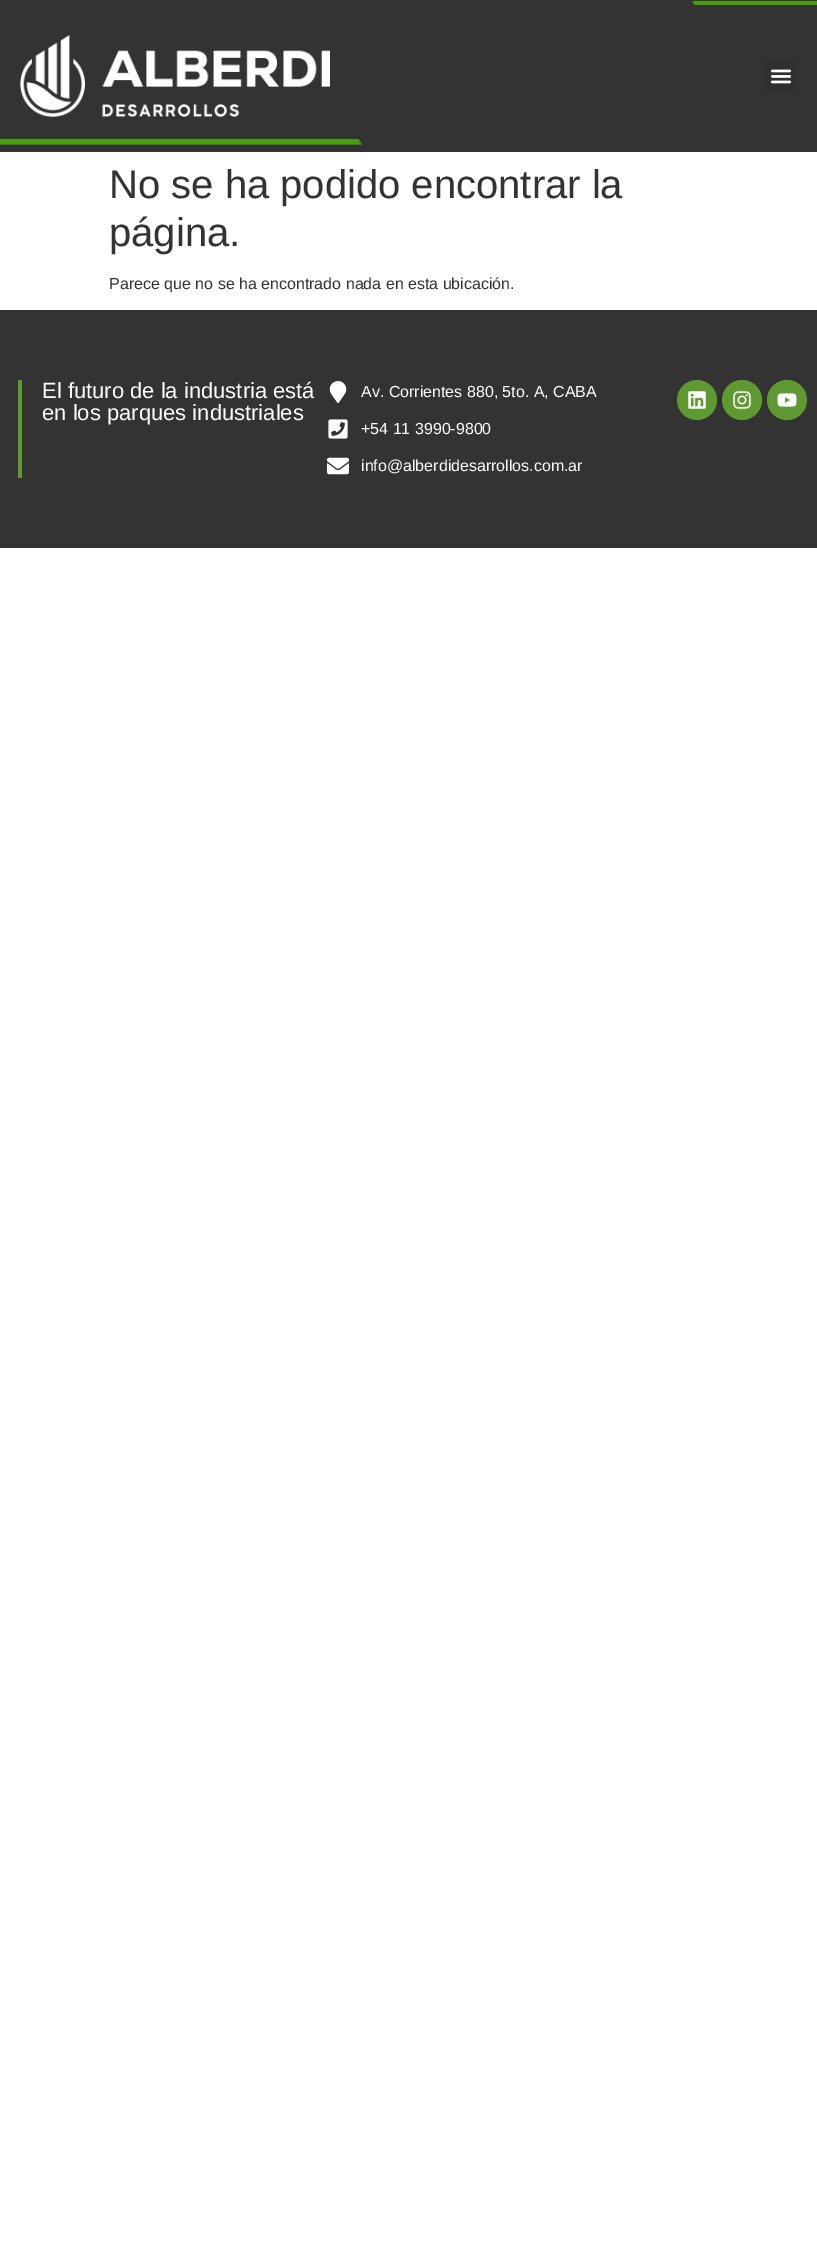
%!PS-Adobe-3.0
%%BoundingBox: 0 0 817 2258
%%LanguageLevel: 3
%%Pages: 1
%%EndComments
%%BeginProlog
/rrect { 5 dict begin { /r /h /w /y /x } { exch def } forall
  x r add y moveto x w add y 2 copy h add r arct x w add y h add x 1 index r arct
  x y h add x y r arct x y 2 copy exch w add exch r arct closepath end } def
/drawimage { 5 dict begin { /h /w /y /x /name } { exch def } forall
  gsave x y translate w h scale
  w h 8 [w 0 0 h 0 0] name (r) file false 3 colorimage grestore end } def
%%EndProlog
%%BeginSetup
<< /PageSize [817 2258] >> setpagedevice
%%EndSetup
%%Page: 1 1
0 2258 translate 1 -1 scale
4 setmiterlimit
1 setgray
0 0 817 2258 rectfill
0.2 setgray
0 0 817 152 rectfill
(images/1.raw) 692 1 125 4 drawimage
(images/2.raw) 20 35 310 82 drawimage
0.188 setgray
764 59 33 33 3 rrect fill
(images/3.raw) 770 69 22 15 drawimage
(images/4.raw) 0 139 362 6 drawimage
0.2 setgray
0 310 817 238 rectfill
0.369 0.6 0.192 setrgbcolor
18 380 4 98 rectfill
(images/5.raw) 329 381 18 22 drawimage
(images/6.raw) 328 419 20 20 drawimage
(images/7.raw) 327 457 22 18 drawimage
newpath 697 400 20 0 360 arc closepath fill
(images/8.raw) 688 391 18 18 drawimage
newpath 742 400 20 0 360 arc closepath fill
(images/9.raw) 733 391 18 18 drawimage
newpath 787 400 20 0 360 arc closepath fill
(images/10.raw) 777 393 20 14 drawimage
/LiberationSans-Regular [40 0 0 -40 0 0] selectfont
0.2 setgray
109 198 moveto (No se ha podido encontrar la) show
109 246 moveto (página.) show
/LiberationSans-Regular [16 0 0 -16 0 0] selectfont
109 289 moveto (Parece que no se ha encontrado nada en esta ubicación.) show
/LiberationSans-Regular [22 0 0 -22 0 0] selectfont
1 setgray
42 398 moveto (El futuro de la industria está) show
42 420 moveto (en los parques industriales) show
/LiberationSans-Regular [16 0 0 -16 0 0] selectfont
361 397 moveto (Av. Corrientes 880, 5to. A, CABA) show
361 434 moveto (+54 11 3990-9800) show
361 471 moveto (info@alberdidesarrollos.com.ar) show
showpage
%%EOF
